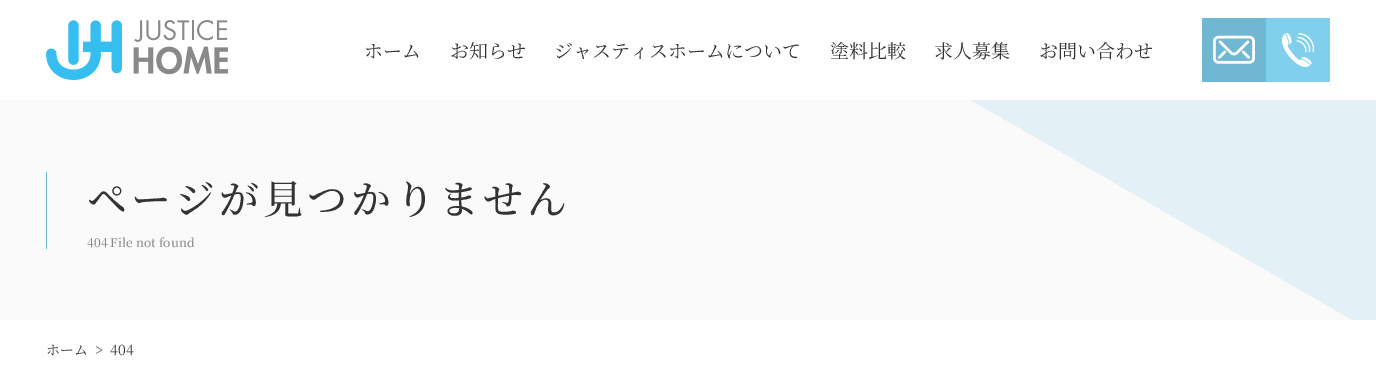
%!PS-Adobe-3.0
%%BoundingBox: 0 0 1376 385
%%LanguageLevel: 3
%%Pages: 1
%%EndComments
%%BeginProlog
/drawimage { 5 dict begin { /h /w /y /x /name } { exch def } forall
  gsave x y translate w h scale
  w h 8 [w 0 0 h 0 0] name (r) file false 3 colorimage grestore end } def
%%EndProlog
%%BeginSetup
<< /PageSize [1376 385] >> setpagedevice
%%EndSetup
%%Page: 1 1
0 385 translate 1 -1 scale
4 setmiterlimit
1 setgray
0 0 1376 385 rectfill
(images/1.raw) 46 20 182 60 drawimage
0.439 0.718 0.82 setrgbcolor
1202 18 64 64 rectfill
(images/2.raw) 1213 35 42 29 drawimage
0.502 0.816 0.929 setrgbcolor
1266 18 64 64 rectfill
(images/3.raw) 1281 33 34 34 drawimage
gsave newpath 0 100 moveto 1376 100 lineto 1376 320 lineto 0 320 lineto closepath clip newpath
<< /ShadingType 2 /ColorSpace /DeviceRGB /Coords [447 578 929 -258] /Extend [true true] /Function << /FunctionType 3 /Domain [0 1] /Functions [<< /FunctionType 2 /Domain [0 1] /C0 [0.98 0.98 0.98] /C1 [0.98 0.98 0.98] /N 1 >> << /FunctionType 2 /Domain [0 1] /C0 [0.89 0.945 0.965] /C1 [0.89 0.945 0.965] /N 1 >>] /Bounds [0.7] /Encode [0 1 0 1] >> >> shfill grestore
0.439 0.718 0.82 setrgbcolor
46 172 1 77 rectfill
/NotoSerifJP-Regular [19 0 0 -19 0 0] selectfont
0.2 setgray
364 58 moveto (ホーム) show
450 58 moveto (お知らせ) show
554 58 moveto (ジャスティスホームについて) show
830 58 moveto (塗料比較) show
934 58 moveto (求人募集) show
1039 58 moveto (お問い合わせ) show
/NotoSerifJP-Medium [40 0 0 -40 0 0] selectfont
87 214 moveto 4 0 (ページが見つかりません) ashow
/NotoSerifJP-Medium [12 0 0 -12 0 0] selectfont
0.533 setgray
87 247 moveto (404 File not found) show
/NotoSerifJP-Regular [14 0 0 -14 0 0] selectfont
0.2 setgray
46 355 moveto (ホーム) show
95 355 moveto (>) show
110 355 moveto (404) show
showpage
%%EOF
